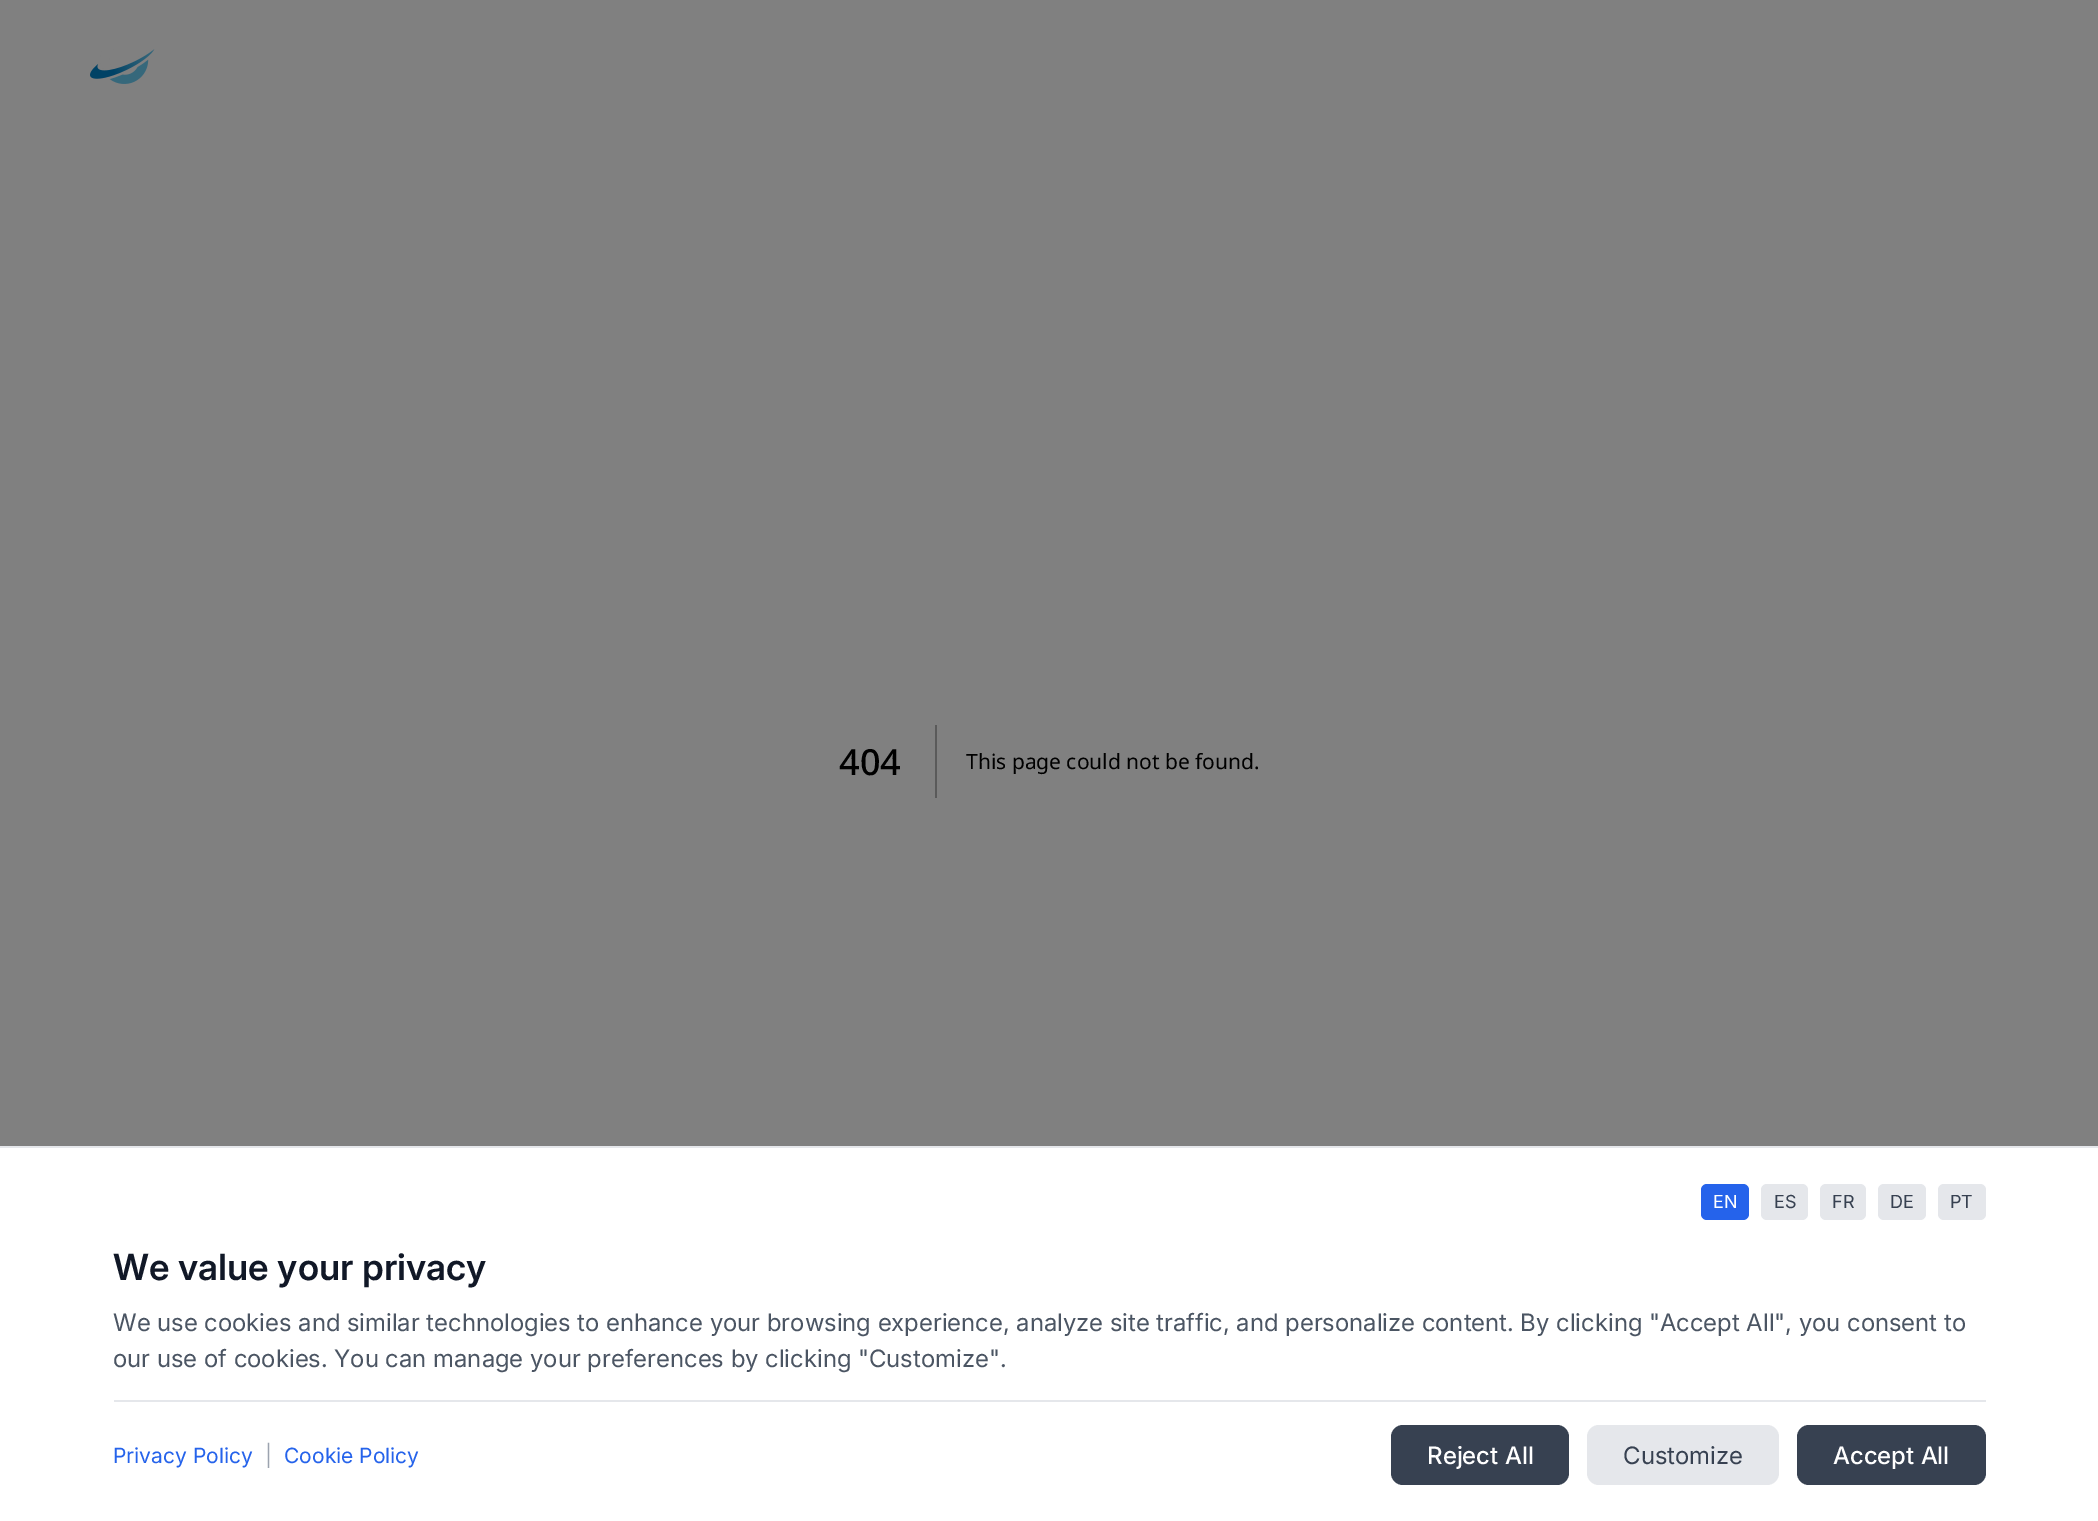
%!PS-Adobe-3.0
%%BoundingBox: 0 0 2098 1521
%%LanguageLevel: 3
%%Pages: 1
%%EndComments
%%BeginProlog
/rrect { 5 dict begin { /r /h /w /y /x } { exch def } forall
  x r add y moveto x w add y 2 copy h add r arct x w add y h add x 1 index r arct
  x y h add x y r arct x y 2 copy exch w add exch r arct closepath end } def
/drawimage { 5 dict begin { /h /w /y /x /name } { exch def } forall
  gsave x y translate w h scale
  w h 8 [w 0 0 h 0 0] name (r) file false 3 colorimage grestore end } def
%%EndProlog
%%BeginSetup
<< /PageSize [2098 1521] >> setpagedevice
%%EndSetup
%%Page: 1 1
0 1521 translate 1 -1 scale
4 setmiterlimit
0.502 setgray
0 0 2098 1521 rectfill
(images/1.raw) 90 49 65 35 drawimage
0.353 setgray
935 725 2 73 rectfill
1 setgray
0 1148 2098 373 rectfill
0.898 0.906 0.922 setrgbcolor
0 1146 2098 2 rectfill
0.145 0.388 0.922 setrgbcolor
1701 1184 48 36 6 rrect fill
0.898 0.906 0.922 setrgbcolor
1761 1184 47 36 6 rrect fill
1820 1184 46 36 6 rrect fill
1878 1184 48 36 6 rrect fill
1938 1184 48 36 6 rrect fill
114 1400 1872 2 rectfill
0.216 0.255 0.318 setrgbcolor
1391 1425 178 60 12 rrect fill
0.898 0.906 0.922 setrgbcolor
1587 1425 192 60 12 rrect fill
0.216 0.255 0.318 setrgbcolor
1797 1425 189 60 12 rrect fill
/NotoSans-Medium [36 0 0 -36 0 0] selectfont
0 setgray
839 775 moveto (404) show
/NotoSans-Regular [21 0 0 -21 0 0] selectfont
966 769 moveto (This page could not be found.) show
/Inter-Regular [18 0 0 -18 0 0] selectfont
1 setgray
1713 1208 moveto (EN) show
0.216 0.255 0.318 setrgbcolor
1774 1208 moveto (ES) show
1832 1208 moveto (FR) show
1890 1208 moveto (DE) show
1950 1208 moveto (PT) show
/Inter-SemiBold [36 0 0 -36 0 0] selectfont
0.067 0.094 0.153 setrgbcolor
113 1280 moveto (We value your privacy) show
/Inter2-Regular [24 0 0 -24 0 0] selectfont
0.294 0.333 0.388 setrgbcolor
113 1331 moveto (We use cookies and similar technologies to enhance your browsing experience, analyze site traffic, and personalize content. By clicking "Accept All", you consent to) show
113 1367 moveto (our use of cookies. You can manage your preferences by clicking "Customize".) show
/Inter-Regular [21 0 0 -21 0 0] selectfont
0.145 0.388 0.922 setrgbcolor
113 1463 moveto (Privacy Policy) show
0.612 0.639 0.686 setrgbcolor
265 1463 moveto (|) show
0.145 0.388 0.922 setrgbcolor
284 1463 moveto (Cookie Policy) show
/Inter-Medium [24 0 0 -24 0 0] selectfont
1 setgray
1427 1464 moveto (Reject All) show
/Inter2-Regular [24 0 0 -24 0 0] selectfont
0.216 0.255 0.318 setrgbcolor
1623 1464 moveto (Customize) show
/Inter-Medium [24 0 0 -24 0 0] selectfont
1 setgray
1833 1464 moveto (Accept All) show
showpage
%%EOF
